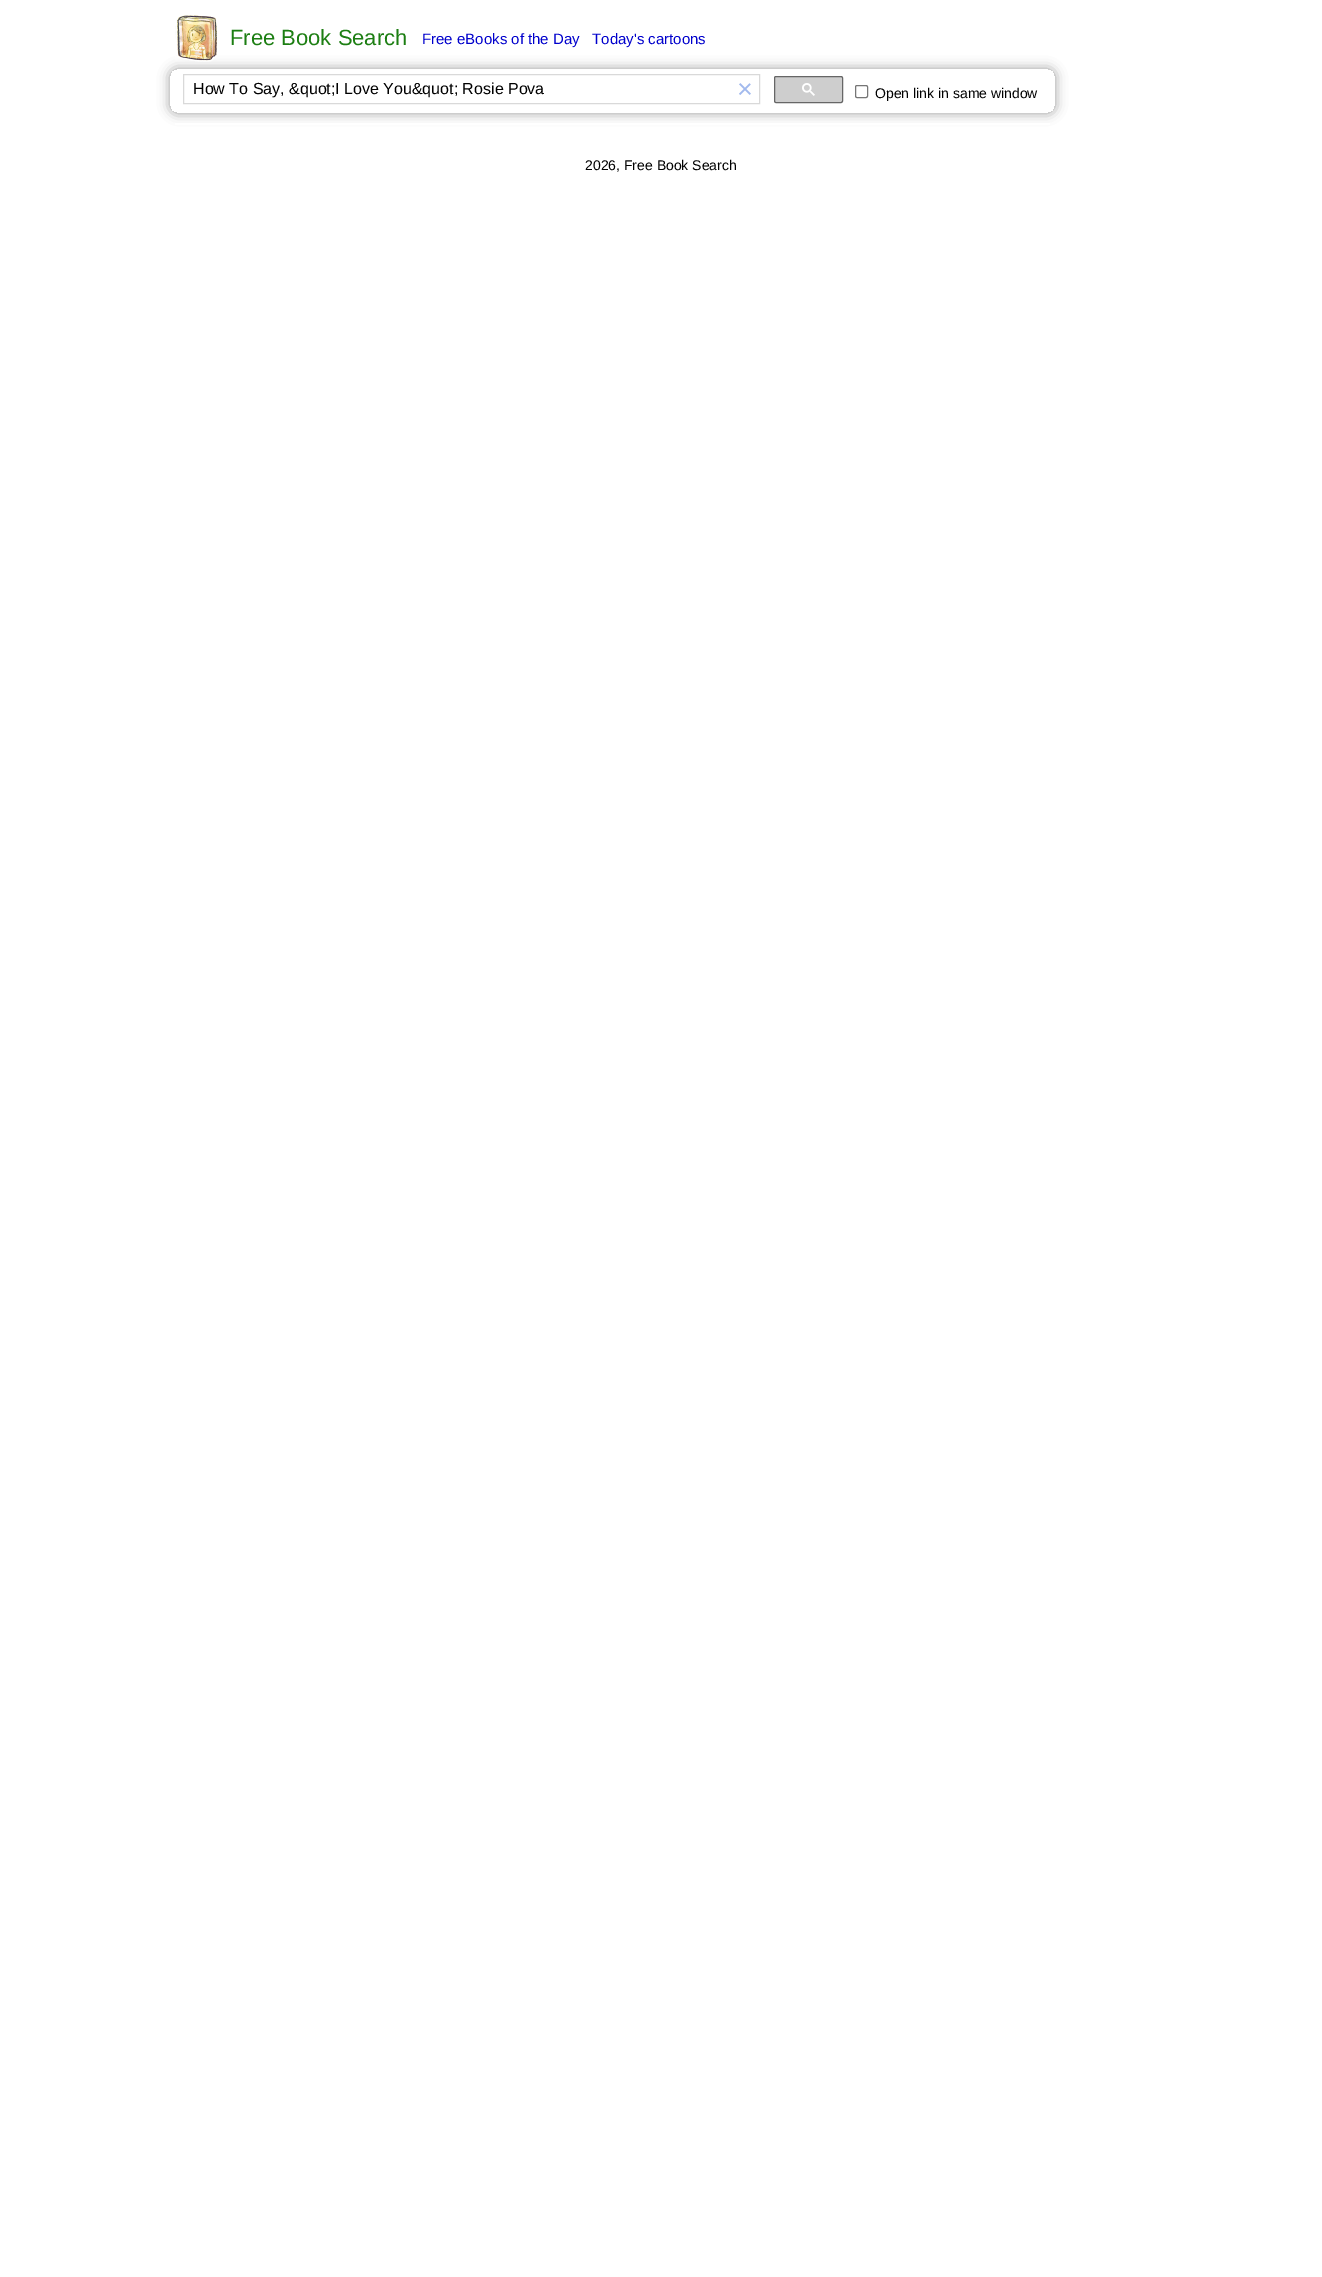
%!PS-Adobe-3.0
%%BoundingBox: 0 0 1322 2277
%%LanguageLevel: 3
%%Pages: 1
%%EndComments
%%BeginProlog
/setalpha { dup .setfillconstantalpha .setstrokeconstantalpha } def
/rrect { 5 dict begin { /r /h /w /y /x } { exch def } forall
  x r add y moveto x w add y 2 copy h add r arct x w add y h add x 1 index r arct
  x y h add x y r arct x y 2 copy exch w add exch r arct closepath end } def
/softshadow { 12 dict begin { /a /b /q /h /w /y /x } { exch def } forall gsave /was 0 def
  9 -2 -9 { dup b mul 4 div /e exch def 1 sub .425 mul 2.718 exch exp 1 add a .99 .min exch div /now exch def
    1 1 now sub 1 was sub div sub setalpha /was now def
    w h .min e 2 mul add 0 gt { x e sub y e sub w e 2 mul add h e 2 mul add
      q e add b .6 mul add w h .min 2 div e add .min 0 .max rrect fill } if } for grestore end } def
/drawimage { 5 dict begin { /h /w /y /x /name } { exch def } forall
  gsave x y translate w h scale
  w h 8 [w 0 0 h 0 0] name (r) file false 3 colorimage grestore end } def
%%EndProlog
%%BeginSetup
<< /PageSize [1322 2277] /PageUsesTransparency true >> setpagedevice
%%EndSetup
%%Page: 1 1
0 .pushpdf14devicefilter
0 2277 translate 1 -1 scale
4 setmiterlimit
1 setgray
0 0 1322 2277 rectfill
gsave
newpath 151 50 moveto 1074 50 lineto 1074 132 lineto 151 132 lineto closepath 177 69 moveto 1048 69 lineto 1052 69 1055 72 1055 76 curveto 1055 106 lineto 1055 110 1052 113 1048 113 curveto 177 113 lineto 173 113 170 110 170 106 curveto 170 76 lineto 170 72 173 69 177 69 curveto closepath eoclip newpath
0.6 setgray
170 69 885 44 7 6 1 softshadow
grestore
(images/1.raw) 175 15 42 47 drawimage
0.851 setgray
183.5 74.5 576 29 rectstroke
0.808 setgray
774.5 76.5 68 26 1.5 rrect gsave fill grestore
0.4 setgray
stroke
(images/2.raw) 802 83 13 13 drawimage
0.463 setgray
855.5 85.5 12 12 1.5 rrect stroke
1 setgray
175 123 875 2 rectfill
/LiberationSans-Regular [22 0 0 -22 0 0] selectfont
0.11 0.494 0.071 setrgbcolor
230 45 moveto (Free Book Search) show
/LiberationSans-Regular [15 0 0 -15 0 0] selectfont
0 0 0.8 setrgbcolor
422 44 moveto (Free eBooks of the Day) show
592 44 moveto (Today's cartoons) show
/LiberationSans-Regular [16 0 0 -16 0 0] selectfont
0 setgray
193 94 moveto (How To Say, &quot;I Love You&quot; Rosie Pova) show
/LiberationSans-Regular [27 0 0 -27 0 0] selectfont
0.631 0.725 0.929 setrgbcolor
737 98 moveto (×) show
/LiberationSans-Regular [14 0 0 -14 0 0] selectfont
0 setgray
875 98 moveto (Open link in same window) show
585 170 moveto (2026, Free Book Search) show
.poppdf14devicefilter showpage
%%EOF
